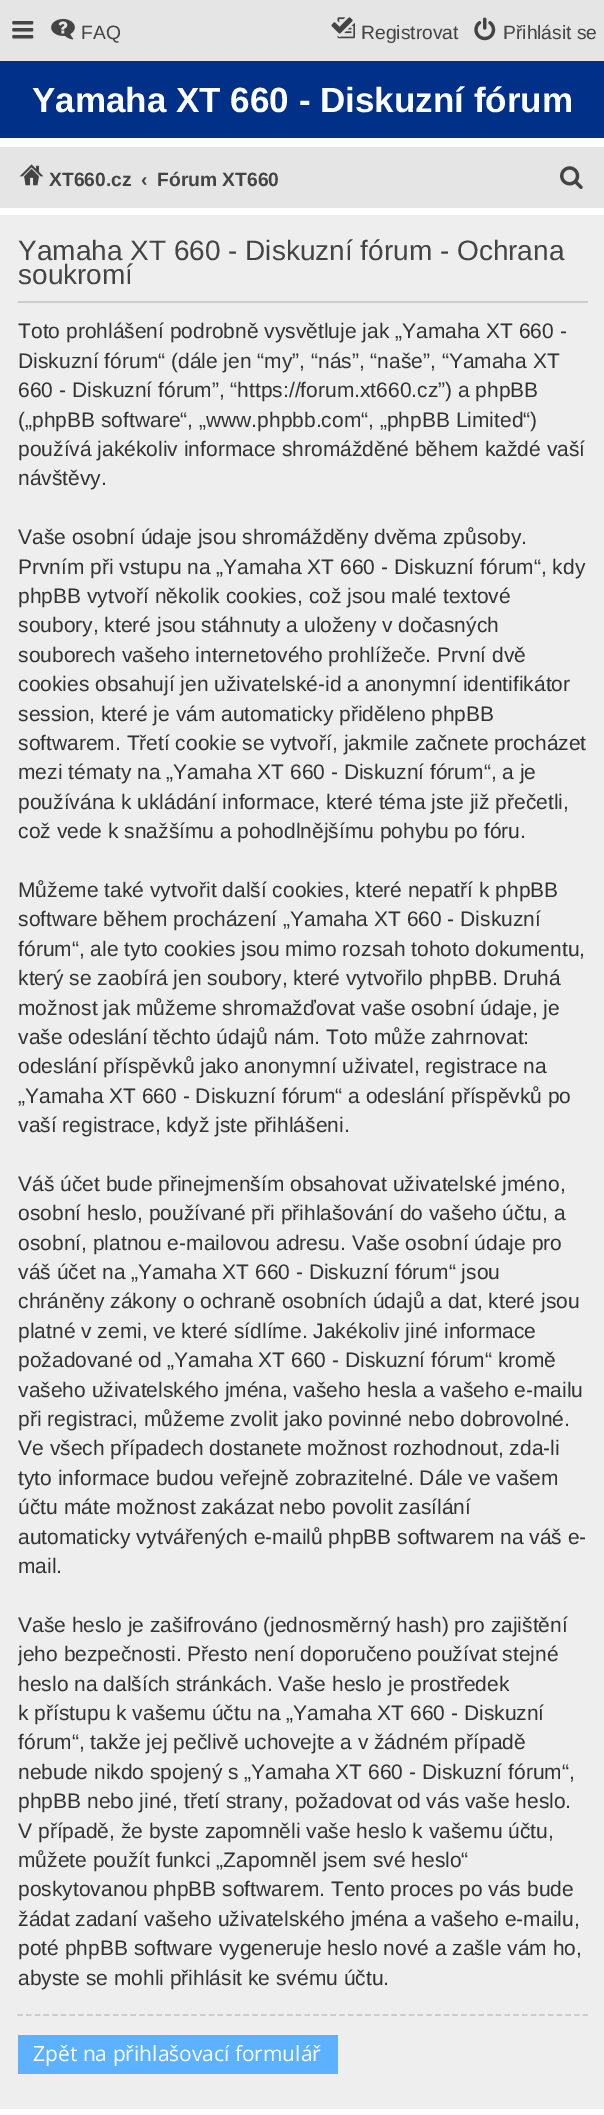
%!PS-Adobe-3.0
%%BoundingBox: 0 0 604 2115
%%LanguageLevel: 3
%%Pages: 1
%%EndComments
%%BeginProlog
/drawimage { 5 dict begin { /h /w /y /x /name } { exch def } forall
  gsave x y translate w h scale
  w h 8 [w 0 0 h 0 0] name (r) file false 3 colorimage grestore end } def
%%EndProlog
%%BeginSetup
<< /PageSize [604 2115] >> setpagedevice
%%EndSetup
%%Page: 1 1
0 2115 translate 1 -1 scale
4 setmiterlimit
1 setgray
0 0 604 2115 rectfill
0.898 setgray
0 0 604 61 rectfill
(images/1.raw) 12 21 22 18 drawimage
(images/2.raw) 51 18 24 22 drawimage
(images/3.raw) 331 17 24 22 drawimage
(images/4.raw) 474 17 22 24 drawimage
0 0.188 0.529 setrgbcolor
0 61 604 77 rectfill
0.898 setgray
0 147 604 61 rectfill
(images/5.raw) 19 164 25 22 drawimage
(images/6.raw) 560 166 23 23 drawimage
0.933 setgray
0 215 604 1894 rectfill
0.8 setgray
18 301 570 2 rectfill
1.8 setlinewidth
[5.25 3.45] 0 setdash
newpath 17.5 2015 moveto 588 2015 lineto stroke
0.365 0.698 1 setrgbcolor
18 2035 320 39 rectfill
/LiberationSans-Regular [19.25 0 0 -19.25 0 0] selectfont
0.267 setgray
81 39 moveto (FAQ) show
361 39 moveto (Registrovat) show
503 39 moveto (Přihlásit se) show
/LiberationSans-Bold [35 0 0 -35 0 0] selectfont
1 setgray
32 112 moveto (Yamaha XT 660 - Diskuzní fórum) show
/LiberationSans-Bold [19.25 0 0 -19.25 0 0] selectfont
0.267 setgray
49 186 moveto (XT660.cz) show
141 186 moveto (‹) show
gsave
158 158 120 42 rectclip
157 186 moveto (Fórum XT660) show
grestore
/LiberationSans-Regular [28 0 0 -28 0 0] selectfont
18 260 moveto (Yamaha XT 660 - Diskuzní fórum - Ochrana) show
18 284 moveto (soukromí) show
/LiberationSans-Regular [21 0 0 -21 0 0] selectfont
0.2 setgray
18 338 moveto (Toto prohlášení podrobně vysvětluje jak „Yamaha XT 660 -) show
18 368 moveto (Diskuzní fórum“ \(dále jen “my”, “nás”, “naše”, “Yamaha XT) show
18 397 moveto (660 - Diskuzní fórum”, “https://forum.xt660.cz”\) a phpBB) show
18 427 moveto (\(„phpBB software“, „www.phpbb.com“, „phpBB Limited“\)) show
18 456 moveto (používá jakékoliv informace shromážděné během každé vaší) show
18 485 moveto (návštěvy.) show
18 544 moveto (Vaše osobní údaje jsou shromážděny dvěma způsoby.) show
18 574 moveto (Prvním při vstupu na „Yamaha XT 660 - Diskuzní fórum“, kdy) show
18 603 moveto (phpBB vytvoří několik cookies, což jsou malé textové) show
18 632 moveto (soubory, které jsou stáhnuty a uloženy v dočasných) show
18 662 moveto (souborech vašeho internetového prohlížeče. První dvě) show
18 691 moveto (cookies obsahují jen uživatelské-id a anonymní identifikátor) show
18 721 moveto (session, které je vám automaticky přiděleno phpBB) show
18 750 moveto (softwarem. Třetí cookie se vytvoří, jakmile začnete procházet) show
18 779 moveto (mezi tématy na „Yamaha XT 660 - Diskuzní fórum“, a je) show
18 809 moveto (používána k ukládání informace, které téma jste již přečetli,) show
18 838 moveto (což vede k snažšímu a pohodlnějšímu pohybu po fóru.) show
18 897 moveto (Můžeme také vytvořit další cookies, které nepatří k phpBB) show
18 926 moveto (software během procházení „Yamaha XT 660 - Diskuzní) show
18 956 moveto (fórum“, ale tyto cookies jsou mimo rozsah tohoto dokumentu,) show
18 985 moveto (který se zaobírá jen soubory, které vytvořilo phpBB. Druhá) show
18 1015 moveto (možnost jak můžeme shromažďovat vaše osobní údaje, je) show
18 1044 moveto (vaše odeslání těchto údajů nám. Toto může zahrnovat:) show
18 1073 moveto (odeslání příspěvků jako anonymní uživatel, registrace na) show
18 1103 moveto („Yamaha XT 660 - Diskuzní fórum“ a odeslání příspěvků po) show
18 1132 moveto (vaší registrace, když jste přihlášeni.) show
18 1191 moveto (Váš účet bude přinejmenším obsahovat uživatelské jméno,) show
18 1220 moveto (osobní heslo, používané při přihlašování do vašeho účtu, a) show
18 1250 moveto (osobní, platnou e-mailovou adresu. Vaše osobní údaje pro) show
18 1279 moveto (váš účet na „Yamaha XT 660 - Diskuzní fórum“ jsou) show
18 1308 moveto (chráněny zákony o ochraně osobních údajů a dat, které jsou) show
18 1338 moveto (platné v zemi, ve které sídlíme. Jakékoliv jiné informace) show
18 1367 moveto (požadované od „Yamaha XT 660 - Diskuzní fórum“ kromě) show
18 1397 moveto (vašeho uživatelského jména, vašeho hesla a vašeho e-mailu) show
18 1426 moveto (při registraci, můžeme zvolit jako povinné nebo dobrovolné.) show
18 1455 moveto (Ve všech případech dostanete možnost rozhodnout, zda-li) show
18 1485 moveto (tyto informace budou veřejně zobrazitelné. Dále ve vašem) show
18 1514 moveto (účtu máte možnost zakázat nebo povolit zasílání) show
18 1544 moveto (automaticky vytvářených e-mailů phpBB softwarem na váš e-) show
18 1573 moveto (mail.) show
18 1632 moveto (Vaše heslo je zašifrováno \(jednosměrný hash\) pro zajištění) show
gsave
18 317 570 1676 rectclip
18 1661 moveto (jeho bezpečnosti. Přesto není doporučeno používat stejné) show
grestore
18 1691 moveto (heslo na dalších stránkách. Vaše heslo je prostředek) show
18 1720 moveto (k přístupu k vašemu účtu na „Yamaha XT 660 - Diskuzní) show
18 1749 moveto (fórum“, takže jej pečlivě uchovejte a v žádném případě) show
18 1779 moveto (nebude nikdo spojený s „Yamaha XT 660 - Diskuzní fórum“,) show
18 1808 moveto (phpBB nebo jiné, třetí strany, požadovat od vás vaše heslo.) show
18 1838 moveto (V případě, že byste zapomněli vaše heslo k vašemu účtu,) show
18 1867 moveto (můžete použít funkci „Zapomněl jsem své heslo“) show
18 1896 moveto (poskytovanou phpBB softwarem. Tento proces po vás bude) show
18 1926 moveto (žádat zadaní vašeho uživatelského jména a vašeho e-mailu,) show
18 1955 moveto (poté phpBB software vygeneruje heslo nové a zašle vám ho,) show
18 1985 moveto (abyste se mohli přihlásit ke svému účtu.) show
/OpenSans-Regular [21 0 0 -21 0 0] selectfont
1 setgray
33 2061 moveto (Zpět na přihlašovací formulář) show
showpage
%%EOF
